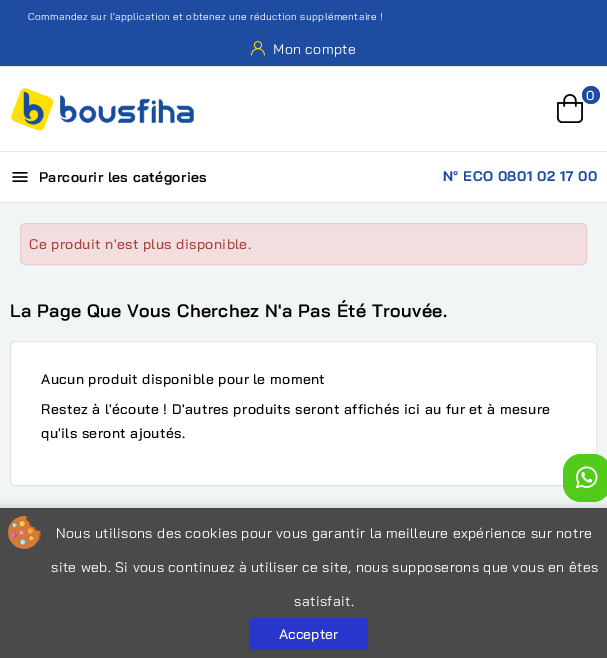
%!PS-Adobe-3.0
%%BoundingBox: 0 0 607 658
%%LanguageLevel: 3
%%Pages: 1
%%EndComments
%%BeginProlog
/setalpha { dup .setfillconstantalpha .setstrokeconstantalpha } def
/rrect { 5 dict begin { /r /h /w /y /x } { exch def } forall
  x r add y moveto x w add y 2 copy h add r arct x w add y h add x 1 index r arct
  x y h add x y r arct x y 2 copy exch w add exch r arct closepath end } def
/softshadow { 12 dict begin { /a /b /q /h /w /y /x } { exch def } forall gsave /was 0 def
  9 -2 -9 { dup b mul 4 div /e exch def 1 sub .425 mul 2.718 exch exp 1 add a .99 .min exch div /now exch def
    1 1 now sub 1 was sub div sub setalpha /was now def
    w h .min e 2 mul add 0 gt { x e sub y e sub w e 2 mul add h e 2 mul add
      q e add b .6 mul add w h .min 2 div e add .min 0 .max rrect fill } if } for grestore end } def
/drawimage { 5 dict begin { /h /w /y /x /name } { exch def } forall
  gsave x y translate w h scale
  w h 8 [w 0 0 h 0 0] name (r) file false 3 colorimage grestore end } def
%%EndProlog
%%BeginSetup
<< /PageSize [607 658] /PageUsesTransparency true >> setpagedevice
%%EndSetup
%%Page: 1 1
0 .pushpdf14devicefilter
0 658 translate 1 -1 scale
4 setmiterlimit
0.945 0.961 0.965 setrgbcolor
0 0 607 658 rectfill
1 setgray
0 67 607 135 rectfill
0.114 0.298 0.631 setrgbcolor
0 0 607 66 rectfill
0.898 setgray
0 66 607 1 rectfill
(images/1.raw) 251 41 14 15 drawimage
(images/2.raw) 11 88 183 43 drawimage
(images/3.raw) 557 94 26 29 drawimage
0.114 0.298 0.631 setrgbcolor
newpath 591 95 9 0 360 arc closepath fill
0.898 setgray
0 151 607 1 rectfill
0 202 607 1 rectfill
(images/4.raw) 12 172 16 10 drawimage
0.949 0.871 0.871 setrgbcolor
20.5 223.5 566 41 4.5 rrect gsave fill grestore
0.922 0.8 0.8 setrgbcolor
stroke
1 setgray
10.5 341.5 586 144 4.5 rrect gsave fill grestore
0.898 setgray
stroke
0.325 0.796 0.106 setrgbcolor
563 454 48 48 18 rrect fill
(images/5.raw) 575 466 23 23 drawimage
0 setgray
0 508 607 150 0 5 0.2 softshadow
0.29 setgray
0 508 607 150 rectfill
(images/6.raw) 8 516 33 33 drawimage
0.161 0.212 0.8 setrgbcolor
249 618 119 32 5 rrect fill
/BaiJamjuree-Regular [10 0 0 -10 0 0] selectfont
1 setgray
28 20 moveto 0.4 0 (Commandez sur l'application et obtenez une réduction supplémentaire !) ashow
/BaiJamjuree-Regular [14 0 0 -14 0 0] selectfont
273 54 moveto 0.4 0 (Mon compte) ashow
/BaiJamjuree-Medium [13 0 0 -13 0 0] selectfont
586 100 moveto 0.4 0 (0) ashow
/BaiJamjuree-SemiBold [14 0 0 -14 0 0] selectfont
0 setgray
39 182 moveto 0.4 0 (Parcourir les catégories) ashow
/BaiJamjuree-Bold [14 0 0 -14 0 0] selectfont
0.114 0.298 0.631 setrgbcolor
443 181 moveto 0.4 0 (N° ECO 0801 02 17 00) ashow
/BaiJamjuree-Medium [14 0 0 -14 0 0] selectfont
0.663 0.267 0.259 setrgbcolor
29 249 moveto 0.4 0 (Ce produit n'est plus disponible.) ashow
/BaiJamjuree-SemiBold [18 0 0 -18 0 0] selectfont
0 setgray
10 317 moveto 0.4 0 (La Page Que Vous Cherchez N'a Pas Été Trouvée.) ashow
/BaiJamjuree-Medium [14 0 0 -14 0 0] selectfont
41 384 moveto 0.4 0 (Aucun produit disponible pour le moment) ashow
41 414 moveto 0.4 0 (Restez à l'écoute ! D'autres produits seront affichés ici au fur et à mesure) ashow
41 438 moveto 0.4 0 (qu'ils seront ajoutés.) ashow
/BaiJamjuree-Regular [14 0 0 -14 0 0] selectfont
1 setgray
56 538 moveto 0.4 0 (Nous utilisons des cookies pour vous garantir la meilleure expérience sur notre) ashow
51 572 moveto 0.4 0 (site web. Si vous continuez à utiliser ce site, nous supposerons que vous en êtes) ashow
294 606 moveto 0.4 0 (satisfait.) ashow
/BaiJamjuree-Medium [14 0 0 -14 0 0] selectfont
279 639 moveto (Accepter) show
.poppdf14devicefilter showpage
%%EOF
